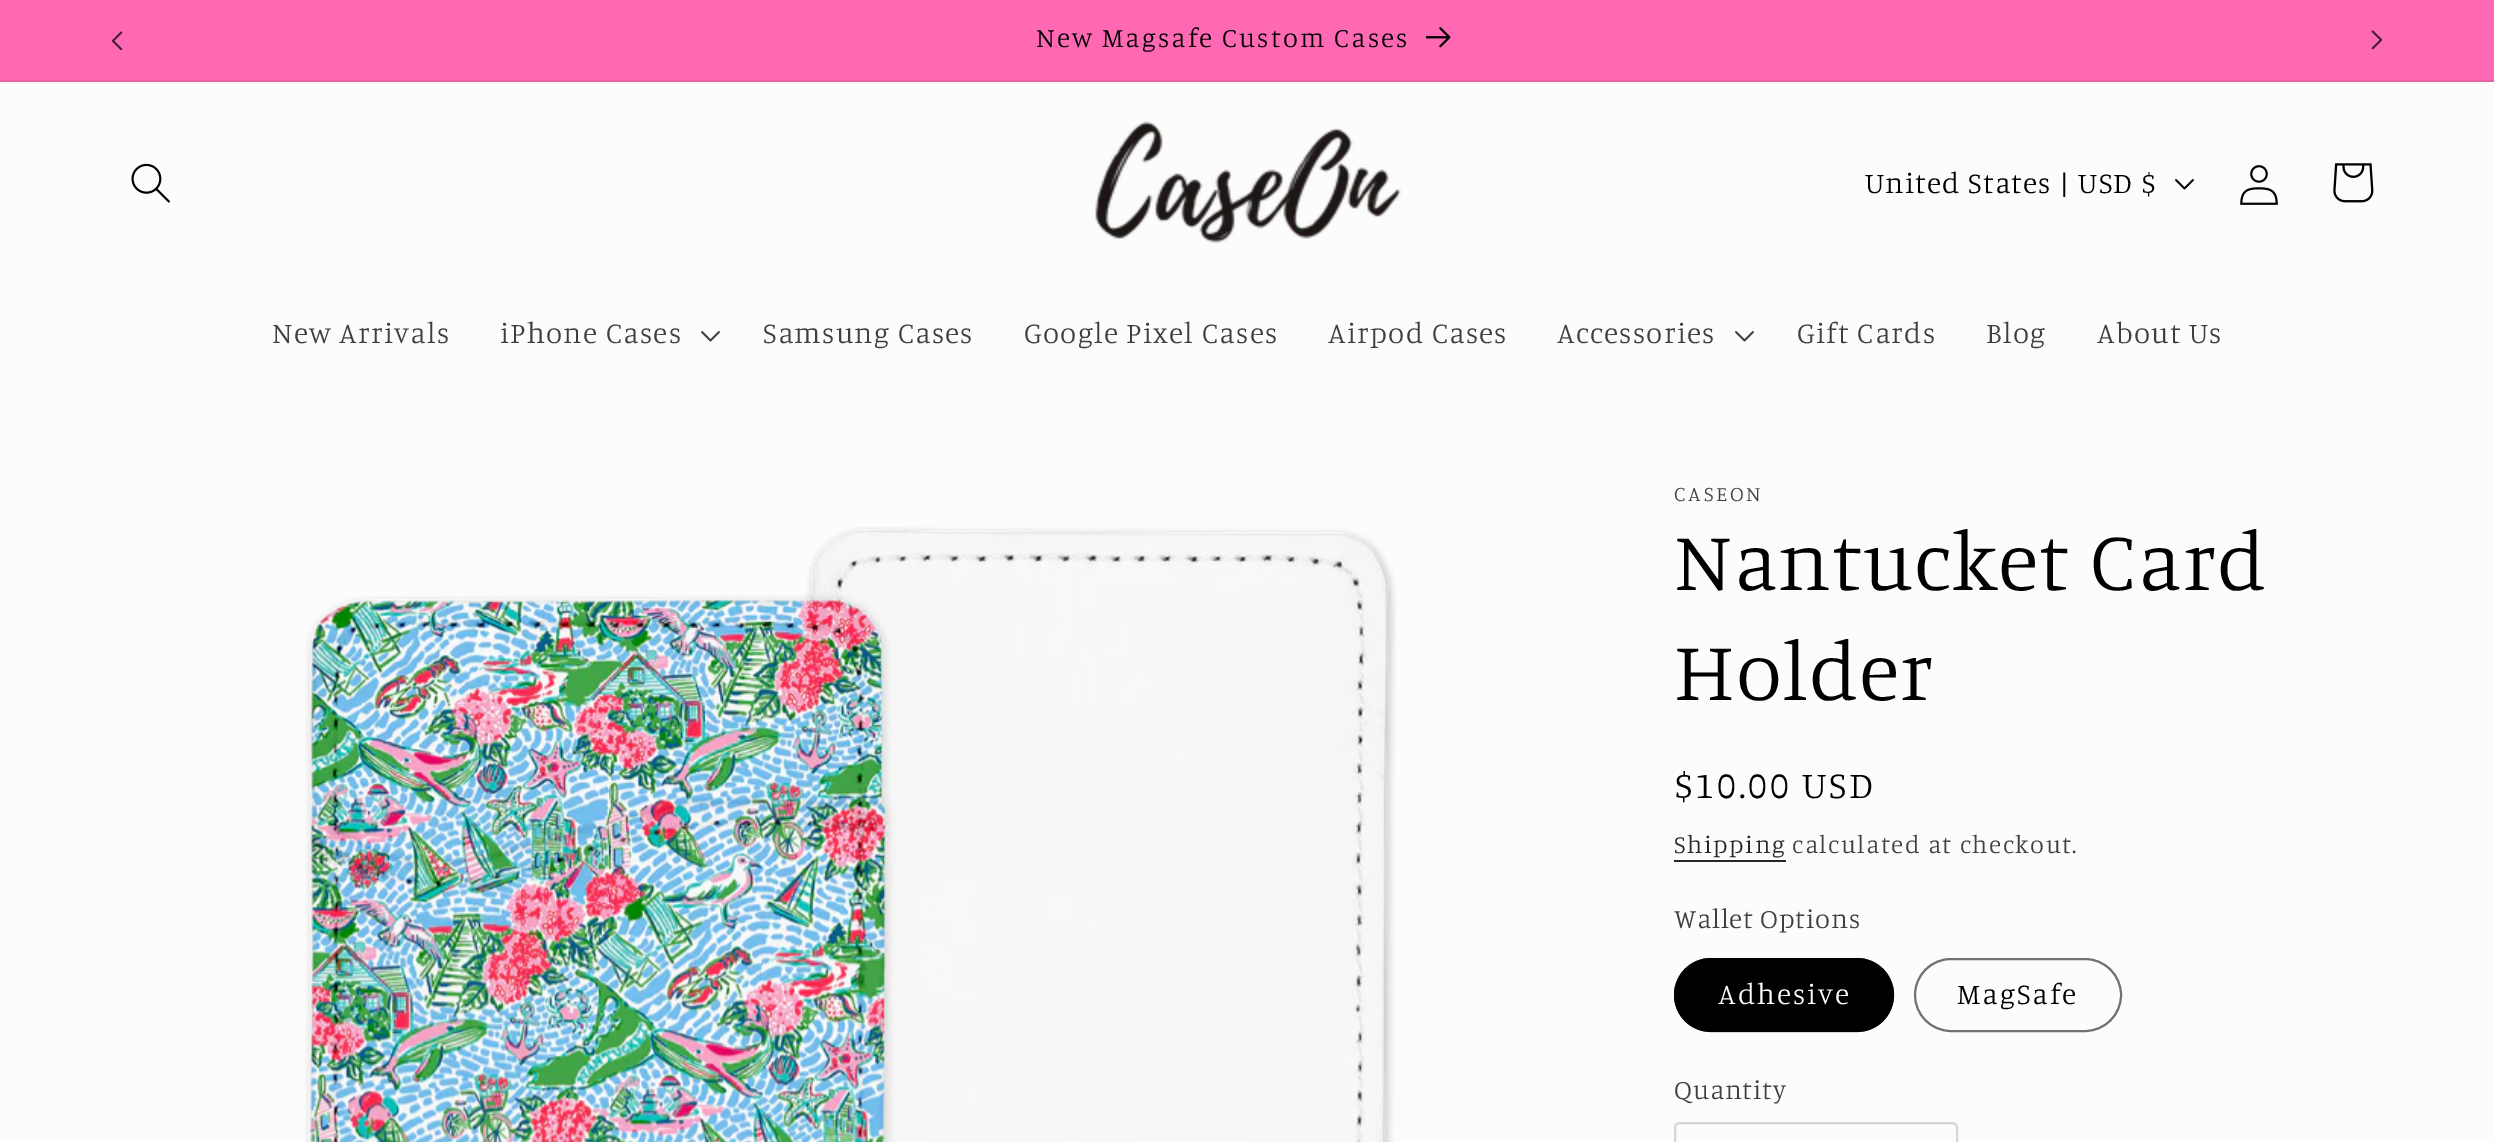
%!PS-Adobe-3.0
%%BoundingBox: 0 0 2494 1142
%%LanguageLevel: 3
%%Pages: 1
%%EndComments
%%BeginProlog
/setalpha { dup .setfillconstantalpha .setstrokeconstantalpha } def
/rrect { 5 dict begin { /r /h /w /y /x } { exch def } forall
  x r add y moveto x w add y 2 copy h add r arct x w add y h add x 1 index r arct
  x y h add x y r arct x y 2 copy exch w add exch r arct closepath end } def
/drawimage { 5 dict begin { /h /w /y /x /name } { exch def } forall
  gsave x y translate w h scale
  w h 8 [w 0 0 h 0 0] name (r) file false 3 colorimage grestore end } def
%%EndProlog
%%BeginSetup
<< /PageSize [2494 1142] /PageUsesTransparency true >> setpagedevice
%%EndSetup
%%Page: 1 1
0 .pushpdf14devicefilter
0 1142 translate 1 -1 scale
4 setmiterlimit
0.988 setgray
0 0 2494 1142 rectfill
1 0.412 0.706 setrgbcolor
0 0 2494 80 rectfill
0.922 0.38 0.651 setrgbcolor
0 80 2494 2 rectfill
(images/1.raw) 111 31 12 20 drawimage
(images/2.raw) 1426 27 25 21 drawimage
(images/3.raw) 2371 30 12 20 drawimage
(images/4.raw) 131 163 39 40 drawimage
(images/5.raw) 1095 121 306 122 drawimage
(images/6.raw) 2175 179 19 11 drawimage
(images/7.raw) 2240 165 38 40 drawimage
(images/8.raw) 2333 163 41 40 drawimage
(images/9.raw) 701 331 19 11 drawimage
(images/9.raw) 1735 331 19 11 drawimage
(images/10.raw) 305 527 1091 615 drawimage
0.149 setgray
1674 860 112 2 rectfill
0 setgray
1674 958 220 74 37 rrect fill
0.55 setalpha
2 setlinewidth
1675 959 218 72 36 rrect stroke
1 setalpha
0.443 setgray
1915 959 206 72 36 rrect stroke
0.839 setgray
1675 1123 282 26 5 rrect stroke
/Manuale-Light [27.25 0 0 -27.25 0 0] selectfont
0 setgray
1036 47 moveto 2.1 0 (New Magsafe Custom Cases) ashow
/Manuale-Light [29.5 0 0 -29.5 0 0] selectfont
1865 193 moveto 1.25 0 (United States | USD $) ashow
0.247 setgray
272 343 moveto 1.25 0 (New Arrivals) ashow
500 343 moveto 1.25 0 (iPhone Cases) ashow
763 343 moveto 1.25 0 (Samsung Cases) ashow
1024 343 moveto 1.25 0 (Google Pixel Cases) ashow
1328 343 moveto 1.25 0 (Airpod Cases) ashow
1557 343 moveto 1.25 0 (Accessories) ashow
1797 343 moveto 1.25 0 (Gift Cards) ashow
1986 343 moveto 1.25 0 (Blog) ashow
2097 343 moveto 1.25 0 (About Us) ashow
/Manuale-Light [21 0 0 -21 0 0] selectfont
1674 501 moveto 2.75 0 (CASEON) ashow
/Manuale-Light [84 0 0 -84 0 0] selectfont
0 setgray
1674 590 moveto 1.25 0 (Nantucket Card) ashow
1674 700 moveto 1.25 0 (Holder) ashow
/Manuale-Light [37.75 0 0 -37.75 0 0] selectfont
1674 798 moveto 2.75 0 ($10.00 USD) ashow
/Manuale-Light [25.25 0 0 -25.25 0 0] selectfont
0.149 setgray
1674 853 moveto 1.5 0 (Shipping) ashow
0.247 setgray
1792 853 moveto 1.5 0 (calculated at checkout.) ashow
/Manuale-Light [27.25 0 0 -27.25 0 0] selectfont
1674 928 moveto 0.8 0 (Wallet Options) ashow
/Manuale-Light [29.5 0 0 -29.5 0 0] selectfont
0.988 setgray
1718 1004 moveto 2.1 0 (Adhesive) ashow
0 setgray
1957 1004 moveto 2.1 0 (MagSafe) ashow
/Manuale-Light [27.25 0 0 -27.25 0 0] selectfont
0.247 setgray
1674 1099 moveto 0.8 0 (Quantity) ashow
.poppdf14devicefilter showpage
%%EOF
